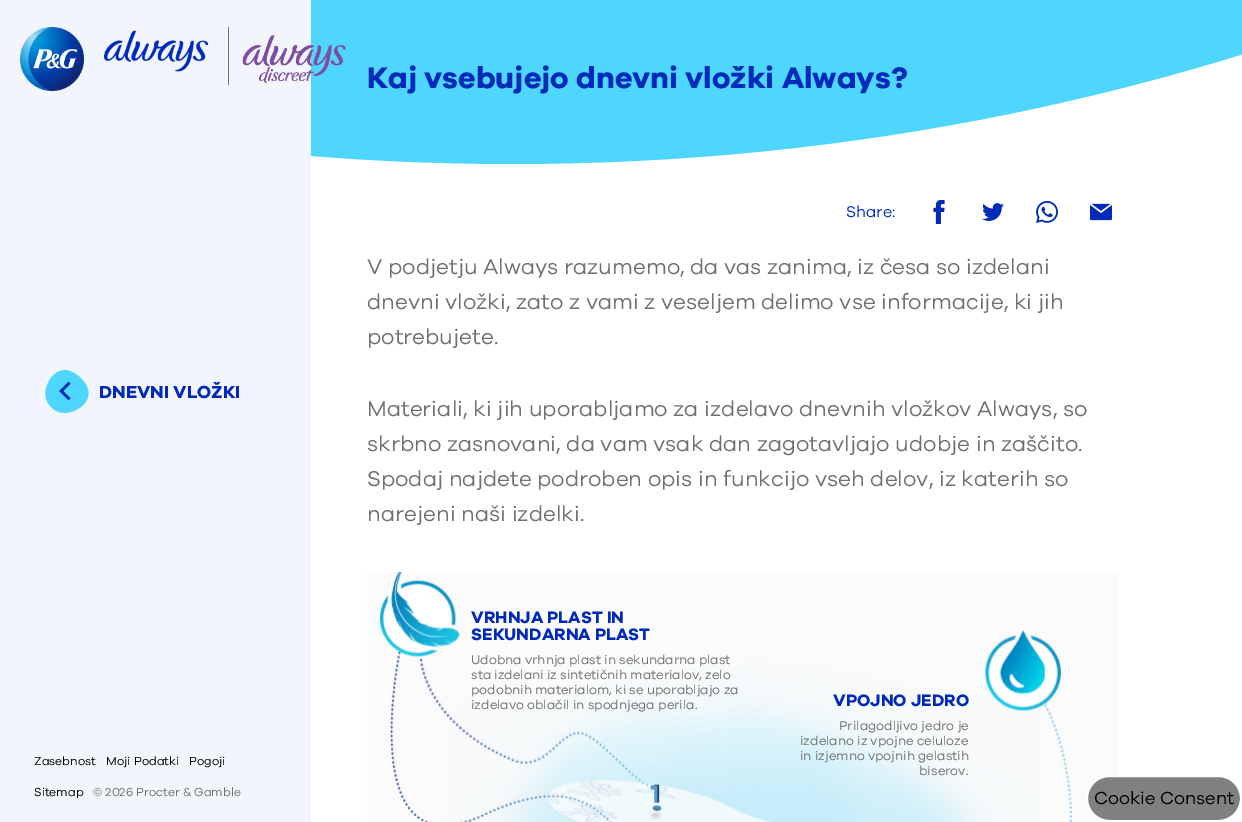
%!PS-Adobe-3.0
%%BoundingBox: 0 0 1242 822
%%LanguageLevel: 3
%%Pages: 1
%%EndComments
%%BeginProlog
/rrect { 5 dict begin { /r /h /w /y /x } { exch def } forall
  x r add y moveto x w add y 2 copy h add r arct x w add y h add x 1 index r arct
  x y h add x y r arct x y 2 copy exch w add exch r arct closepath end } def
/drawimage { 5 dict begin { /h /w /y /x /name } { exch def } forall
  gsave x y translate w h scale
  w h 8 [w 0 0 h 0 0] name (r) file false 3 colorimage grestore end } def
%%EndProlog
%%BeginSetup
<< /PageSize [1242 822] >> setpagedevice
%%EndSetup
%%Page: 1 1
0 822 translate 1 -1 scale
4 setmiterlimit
1 setgray
0 0 1242 822 rectfill
0.949 0.961 0.984 setrgbcolor
0 0 311 822 rectfill
(images/1.raw) 20 27 64 64 drawimage
0.439 setgray
228 27 1 58 rectfill
(images/2.raw) 104 30 104 42 drawimage
gsave
311 0 931 767 rectclip
0.306 0.839 0.992 setrgbcolor
newpath 512 -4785 moveto 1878 -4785 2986 -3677 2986 -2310 curveto 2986 -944 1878 164 512 164 curveto -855 164 -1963 -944 -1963 -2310 curveto -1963 -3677 -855 -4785 512 -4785 curveto closepath fill
grestore
(images/3.raw) 242 35 104 48 drawimage
(images/4.raw) 45 370 44 43 drawimage
(images/5.raw) 933 200 12 24 drawimage
(images/6.raw) 982 203 22 18 drawimage
(images/7.raw) 1036 201 22 22 drawimage
(images/8.raw) 1090 203 22 18 drawimage
0.984 setgray
367 572 751 250 rectfill
(images/9.raw) 380 572 693 250 drawimage
0.502 setgray
1087 776 154 45 22.5 rrect gsave fill grestore
1 setgray
2 setlinewidth
stroke
/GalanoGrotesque-Bold [18 0 0 -18 0 0] selectfont
0.008 0.165 0.729 setrgbcolor
99 398 moveto (DNEVNI VLOŽKI) show
/GalanoGrotesque-Bold [30.6 0 0 -30.6 0 0] selectfont
367 88 moveto (Kaj vsebujejo dnevni vložki Always?) show
/GalanoGrotesque-Regular [16 0 0 -16 0 0] selectfont
846 217 moveto (Share:) show
/GalanoGrotesque-Regular [22 0 0 -22 0 0] selectfont
0.439 setgray
367 274 moveto (V podjetju Always razumemo, da vas zanima, iz česa so izdelani) show
367 309 moveto (dnevni vložki, zato z vami z veseljem delimo vse informacije, ki jih) show
367 344 moveto (potrebujete.) show
367 416 moveto (Materiali, ki jih uporabljamo za izdelavo dnevnih vložkov Always, so) show
367 451 moveto (skrbno zasnovani, da vam vsak dan zagotavljajo udobje in zaščito.) show
367 486 moveto (Spodaj najdete podroben opis in funkcijo vseh delov, iz katerih so) show
367 521 moveto (narejeni naši izdelki.) show
/GalanoGrotesque-Bold [17 0 0 -17 0 0] selectfont
0.008 0.165 0.729 setrgbcolor
471 623 moveto (VRHNJA PLAST IN) show
471 640 moveto (SEKUNDARNA PLAST) show
/GalanoGrotesque-Regular [13 0 0 -13 0 0] selectfont
0.439 setgray
471 664 moveto (Udobna vrhnja plast in sekundarna plast) show
471 679 moveto (sta izdelani iz sintetičnih materialov, zelo) show
471 694 moveto (podobnih materialom, ki se uporabljajo za) show
471 709 moveto (izdelavo oblačil in spodnjega perila.) show
/GalanoGrotesque-Bold [17 0 0 -17 0 0] selectfont
0.008 0.165 0.729 setrgbcolor
833 706 moveto (VPOJNO JEDRO) show
/GalanoGrotesque-Regular [13 0 0 -13 0 0] selectfont
0.439 setgray
839 730 moveto (Prilagodljivo jedro je) show
800 745 moveto (izdelano iz vpojne celuloze) show
800 760 moveto (in izjemno vpojnih gelastih) show
919 775 moveto (biserov.) show
/GalanoGrotesque-Regular [12 0 0 -12 0 0] selectfont
0 setgray
34 765 moveto (Zasebnost) show
106 765 moveto (Moji Podatki) show
189 765 moveto (Pogoji) show
34 796 moveto (Sitemap) show
0.439 setgray
93 796 moveto (© 2026 Procter & Gamble) show
/GalanoGrotesque-Regular [18 0 0 -18 0 0] selectfont
0 setgray
1094 804 moveto (Cookie Consent) show
showpage
%%EOF
